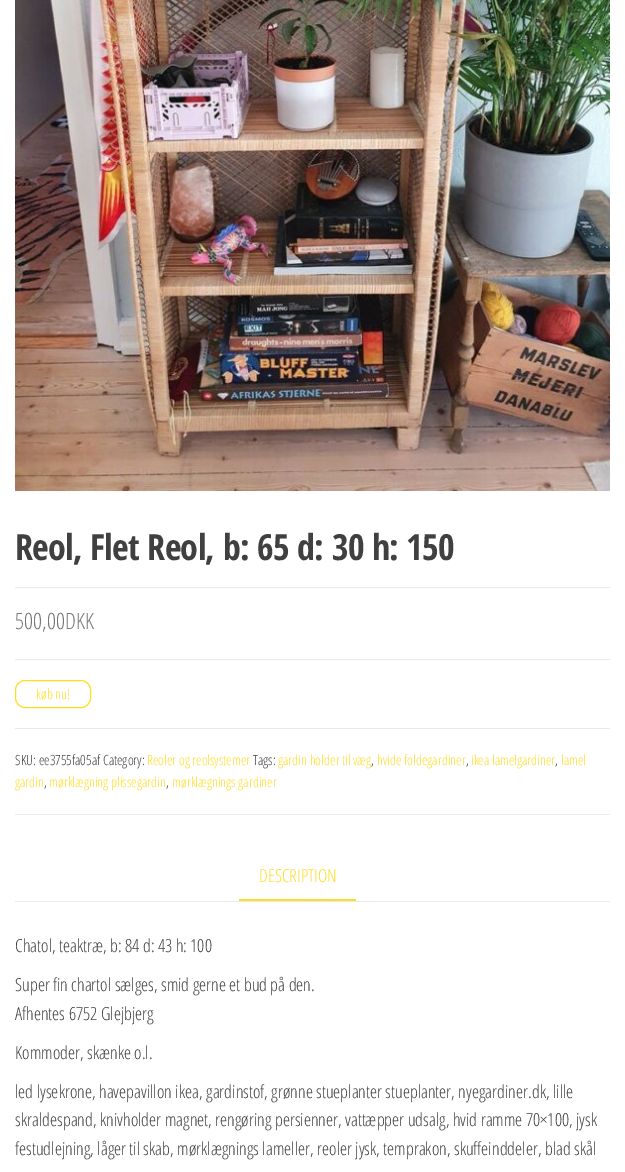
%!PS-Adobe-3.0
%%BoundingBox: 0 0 625 1172
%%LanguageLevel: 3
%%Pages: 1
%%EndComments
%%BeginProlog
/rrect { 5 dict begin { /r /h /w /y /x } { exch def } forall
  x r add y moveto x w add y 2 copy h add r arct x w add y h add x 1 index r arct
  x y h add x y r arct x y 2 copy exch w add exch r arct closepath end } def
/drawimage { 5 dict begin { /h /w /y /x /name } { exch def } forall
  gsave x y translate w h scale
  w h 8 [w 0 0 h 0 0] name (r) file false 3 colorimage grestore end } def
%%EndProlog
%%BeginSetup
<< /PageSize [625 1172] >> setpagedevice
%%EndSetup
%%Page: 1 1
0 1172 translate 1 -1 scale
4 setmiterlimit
1 setgray
0 0 625 1172 rectfill
(images/1.raw) 15 0 595 491 drawimage
0.918 setgray
15 587 595 1 rectfill
15 659 595 1 rectfill
15 728 595 1 rectfill
1 0.867 0.133 setrgbcolor
15.5 680.5 75 27 9.5 rrect stroke
0.918 setgray
15 814 595 1 rectfill
15 901 595 1 rectfill
1 0.867 0.133 setrgbcolor
239 899 117 2 rectfill
/OpenSansCondensed-Bold [36 0 0 -36 0 0] selectfont
0.251 setgray
15 560 moveto -0.7 0 (Reol, Flet Reol, b: 65 d: 30 h: 150) ashow
/OpenSansCondensed-Light [22.5 0 0 -22.5 0 0] selectfont
0.467 setgray
15 629 moveto (500,00DKK) show
/OpenSansCondensed-Light [14 0 0 -14 0 0] selectfont
1 0.867 0.133 setrgbcolor
36 699 moveto (køb nu!) show
0.251 setgray
15 765 moveto (SKU: ee3755fa05af Category:) show
1 0.867 0.133 setrgbcolor
147 765 moveto (Reoler og reolsystemer) show
0.251 setgray
253 765 moveto (Tags:) show
1 0.867 0.133 setrgbcolor
278 765 moveto (gardin holder til væg) show
0.251 setgray
371 765 moveto (,) show
1 0.867 0.133 setrgbcolor
377 765 moveto (hvide foldegardiner) show
0.251 setgray
466 765 moveto (,) show
1 0.867 0.133 setrgbcolor
471 765 moveto (ikea lamelgardiner) show
0.251 setgray
555 765 moveto (,) show
1 0.867 0.133 setrgbcolor
561 765 moveto (lamel) show
15 787 moveto (gardin) show
0.251 setgray
44 787 moveto (,) show
1 0.867 0.133 setrgbcolor
49 787 moveto (mørklægning plissegardin) show
0.251 setgray
166 787 moveto (,) show
1 0.867 0.133 setrgbcolor
172 787 moveto (mørklægnings gardiner) show
/OpenSansCondensed-Light [18 0 0 -18 0 0] selectfont
259 882 moveto (DESCRIPTION) show
0.251 setgray
15 952 moveto (Chatol, teaktræ, b: 84 d: 43 h: 100) show
15 991 moveto (Super fin chartol sælges, smid gerne et bud på den.) show
15 1020 moveto (Afhentes 6752 Glejbjerg) show
15 1059 moveto (Kommoder, skænke o.l.) show
15 1098 moveto (led lysekrone, havepavillon ikea, gardinstof, grønne stueplanter stueplanter, nyegardiner.dk, lille) show
15 1126 moveto (skraldespand, knivholder magnet, rengøring persienner, vattæpper udsalg, hvid ramme 70×100, jysk) show
15 1155 moveto (festudlejning, låger til skab, mørklægnings lameller, reoler jysk, temprakon, skuffeinddeler, blad skål) show
showpage
%%EOF
